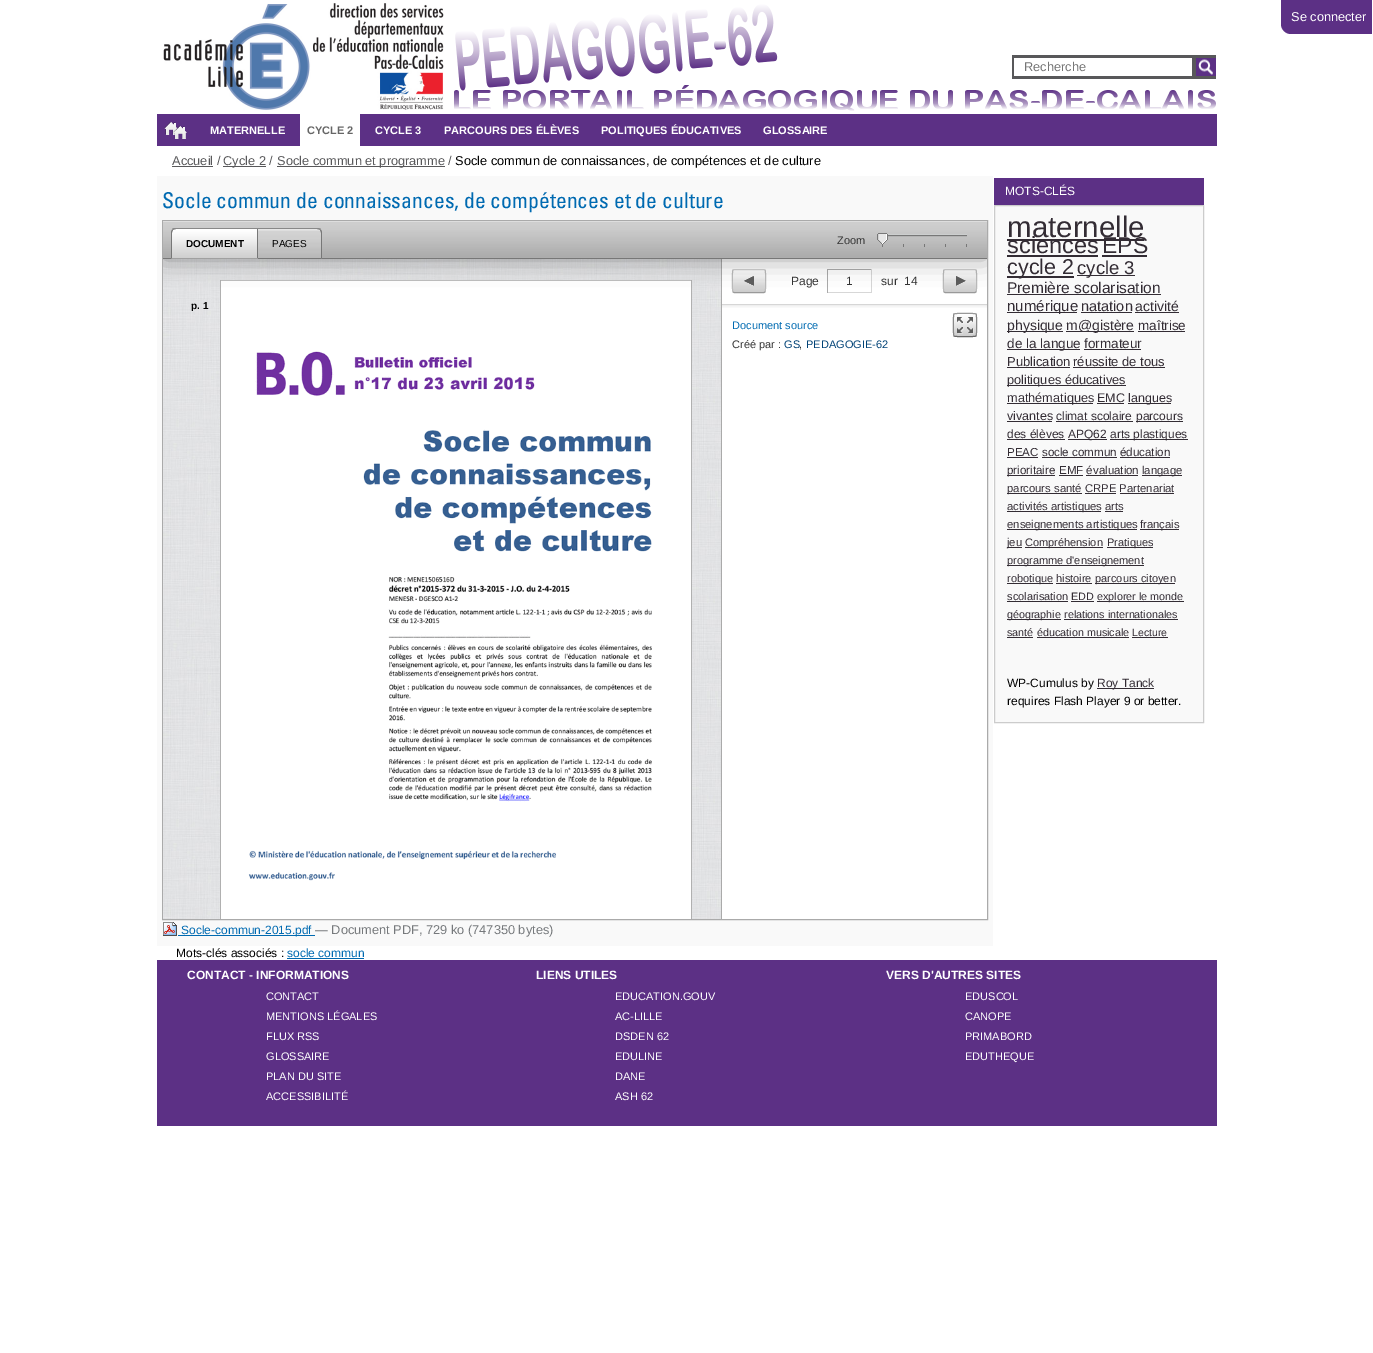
%!PS-Adobe-3.0
%%BoundingBox: 0 0 1373 1353
%%LanguageLevel: 3
%%Pages: 1
%%EndComments
%%BeginProlog
/setalpha { dup .setfillconstantalpha .setstrokeconstantalpha } def
/rrect { 5 dict begin { /r /h /w /y /x } { exch def } forall
  x r add y moveto x w add y 2 copy h add r arct x w add y h add x 1 index r arct
  x y h add x y r arct x y 2 copy exch w add exch r arct closepath end } def
/softshadow { 12 dict begin { /a /b /q /h /w /y /x } { exch def } forall gsave /was 0 def
  9 -2 -9 { dup b mul 4 div /e exch def 1 sub .425 mul 2.718 exch exp 1 add a .99 .min exch div /now exch def
    1 1 now sub 1 was sub div sub setalpha /was now def
    w h .min e 2 mul add 0 gt { x e sub y e sub w e 2 mul add h e 2 mul add
      q e add b .6 mul add w h .min 2 div e add .min 0 .max rrect fill } if } for grestore end } def
/drawimage { 5 dict begin { /h /w /y /x /name } { exch def } forall
  gsave x y translate w h scale
  w h 8 [w 0 0 h 0 0] name (r) file false 3 colorimage grestore end } def
%%EndProlog
%%BeginSetup
<< /PageSize [1373 1353] /PageUsesTransparency true >> setpagedevice
%%EndSetup
%%Page: 1 1
0 .pushpdf14devicefilter
0 1353 translate 1 -1 scale
4 setmiterlimit
1 setgray
0 0 1373 1353 rectfill
(images/1.raw) 163 3 1053 108 drawimage
0.361 0.188 0.522 setrgbcolor
newpath 1281 0 moveto 1372 0 lineto 1372 34 lineto 1291 34 lineto 1285.5 34 1281 29.5 1281 24 curveto closepath fill
0.345 0.345 0.353 setrgbcolor
1012 55 204 24 rectfill
1 setgray
1014 58 178 18 rectfill
0.361 0.188 0.522 setrgbcolor
1196 58 20 18 rectfill
(images/2.raw) 1198 59 15 16 drawimage
157 114 1060 32 rectfill
(images/3.raw) 164 122 23 17 drawimage
1 setgray
300 114 60 32 rectfill
0.345 0.345 0.353 setrgbcolor
172 166 41 1 rectfill
223 166 43 1 rectfill
277 166 168 1 rectfill
0.976 setgray
157 176 836 770 rectfill
0.667 setgray
162.5 220.5 825 699 rectstroke
(images/9.raw) 163 259 558 660 drawimage
1 setgray
221 281 470 638 rectfill
0.753 setgray
220 280 472 1 rectfill
0.69 setgray
691 280 1 639 rectfill
220 280 1 639 rectfill
1 setgray
722 259 265 660 rectfill
0.667 setgray
721 259 1 660 rectfill
(images/12.raw) 733 270 33 22 drawimage
0.8 setgray
newpath 733 270 moveto 734 269.5 lineto 764 269.5 lineto 765 270 lineto stroke
0.733 setgray
newpath 765 270 moveto 766 271 766 291 765 292 curveto stroke
0.6 setgray
newpath 765 292 moveto 764 292.5 lineto 734 292.5 lineto 733 292 lineto stroke
0.733 setgray
newpath 733 292 moveto 732 291 732 271 733 270 curveto stroke
0.667 setgray
827 269 45 1 rectfill
0.843 setgray
871 269 1 24 rectfill
827 292 45 1 rectfill
0.667 setgray
827 269 1 24 rectfill
(images/13.raw) 943 270 34 22 drawimage
0.8 setgray
newpath 944 270 moveto 945 269.5 lineto 975 269.5 lineto 976 270 lineto stroke
0.733 setgray
newpath 976 270 moveto 977 271 977 291 976 292 curveto stroke
0.6 setgray
newpath 976 292 moveto 975 292.5 lineto 945 292.5 lineto 944 292 lineto stroke
0.733 setgray
newpath 944 292 moveto 943 291 943 271 944 270 curveto stroke
gsave
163 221 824 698 rectclip
0 setgray
163 221 824 38 0 12.5 0.35 softshadow
grestore
0.467 setgray
163 258 824 1 rectfill
(images/4.raw) 163 221 824 37 drawimage
(images/5.raw) 171 229 87 30 drawimage
0.533 setgray
newpath 176 228 moveto 174 228 173 228 172 229 curveto 173 230 lineto 176 229 lineto 257 229 lineto 258 228 lineto closepath fill
0.467 setgray
newpath 258 228 moveto 257 229 lineto 257 258 lineto 258 259 lineto closepath fill
0.627 setgray
newpath 258 259 moveto 257 258 lineto 172 258 lineto 171 259 lineto closepath fill
0.467 setgray
newpath 171 259 moveto 172 258 lineto 172 233 lineto 172 232 172.5 231 173 230 curveto 172.5 229.5 lineto 171.5 230 171 231.5 171 233 curveto closepath fill
(images/6.raw) 258 228 64 31 drawimage
0.533 setgray
newpath 258 228 moveto 258 229 lineto 317 229 lineto 320 230 lineto 321 229 lineto 320 228 318 228 317 228 curveto closepath fill
0.467 setgray
newpath 321 258 moveto 321 233 lineto 321 232 320.5 231 320 230 curveto 320.5 229.5 lineto 321.5 230 322 231.5 322 233 curveto 322 259 lineto closepath fill
newpath 322 259 moveto 321 258 lineto 258 258 lineto 258 259 lineto closepath fill
(images/7.raw) 882 234 85 13 drawimage
(images/8.raw) 877 233 11 11 drawimage
(images/10.raw) 248 351 404 530 drawimage
(images/11.raw) 722 304 265 4 drawimage
(images/14.raw) 954 314 23 22 drawimage
0.6 setgray
newpath 954 314 moveto 955 313 975 313 976 314 curveto stroke
0.533 setgray
newpath 976 314 moveto 977 315 977 335 976 336 curveto stroke
0.4 setgray
newpath 976 336 moveto 975 337 955 337 954 336 curveto stroke
0.533 setgray
newpath 954 336 moveto 953 335 953 315 954 314 curveto stroke
(images/15.raw) 163 922 14 14 drawimage
0 0.416 0.694 setrgbcolor
178 935 137 1 rectfill
287 958 77 1 rectfill
0.361 0.188 0.522 setrgbcolor
994 178 210 27 rectfill
0.976 setgray
newpath 994.5 205.5 moveto 1203.5 205.5 lineto 1203.5 722.5 lineto 994.5 722.5 lineto closepath gsave fill grestore
0.8 setgray
stroke
0.2 0.173 0.204 setrgbcolor
1007 239 137 2 rectfill
1007 255 91 2 rectfill
1102 255 45 2 rectfill
1007 276 67 2 rectfill
1077 275 58 1 rectfill
1007 294 154 1 rectfill
1007 312 70 1 rectfill
1081 312 51 1 rectfill
1135 312 44 1 rectfill
1007 331 56 1 rectfill
1066 331 68 1 rectfill
1138 331 47 1 rectfill
1007 349 73 1 rectfill
1084 349 57 1 rectfill
1007 367 63 1 rectfill
1073 367 92 1 rectfill
1007 385 119 1 rectfill
1007 403 86 1 rectfill
1097 403 27 1 rectfill
1128 403 43 1 rectfill
1007 421 45 1 rectfill
1056 421 77 1 rectfill
1136 421 47 1 rectfill
1007 439 58 1 rectfill
1068 439 39 1 rectfill
1110 439 78 1 rectfill
1007 457 31 1 rectfill
1042 457 75 1 rectfill
1120 457 50 1 rectfill
1007 475 48 1 rectfill
1059 475 24 1 rectfill
1142 475 40 1 rectfill
1086 475 52 1 rectfill
1007 493 75 1 rectfill
1085 493 31 1 rectfill
1120 493 54 1 rectfill
1007 511 94 1 rectfill
1105 511 18 1 rectfill
1007 529 130 1 rectfill
1140 529 39 1 rectfill
1007 547 15 1 rectfill
1025 547 78 1 rectfill
1107 547 46 1 rectfill
1007 565 137 1 rectfill
1007 583 46 1 rectfill
1056 583 36 1 rectfill
1095 583 80 1 rectfill
1007 601 61 1 rectfill
1071 601 23 1 rectfill
1097 601 87 1 rectfill
1007 619 54 1 rectfill
1064 619 114 1 rectfill
1007 637 26 1 rectfill
1037 637 92 1 rectfill
1132 637 36 1 rectfill
1097 688 57 1 rectfill
0.361 0.188 0.522 setrgbcolor
157 960 1060 166 rectfill
/LiberationSans-Regular [12.8 0 0 -12.8 0 0] selectfont
1 setgray
1291 21 moveto (Se connecter) show
0.459 setgray
1024 71 moveto (Recherche) show
/LiberationSans-Bold [11 0 0 -11 0 0] selectfont
1 setgray
210 134 moveto (MATERNELLE) show
0.4 setgray
307 134 moveto (CYCLE 2) show
1 setgray
375 134 moveto (CYCLE 3) show
444 134 moveto (PARCOURS DES ÉLÈVES) show
601 134 moveto (POLITIQUES ÉDUCATIVES) show
763 134 moveto (GLOSSAIRE) show
/LiberationSans-Regular [12.8 0 0 -12.8 0 0] selectfont
0.345 0.345 0.353 setrgbcolor
172 165 moveto (Accueil /) show
223 165 moveto (Cycle 2 /) show
277 165 moveto (Socle commun et programme /) show
0 setgray
455 165 moveto (Socle commun de connaissances, de compétences et de culture) show
/Univers-Regular [21.75 0 0 -21.75 0 0] selectfont
0 0.416 0.694 setrgbcolor
162 208 moveto (Socle commun de connaissances, de compétences et de culture) show
/LiberationSans-Bold [10 0 0 -10 0 0] selectfont
0 setgray
186 247 moveto (DOCUMENT) show
/LiberationSans-Regular [10 0 0 -10 0 0] selectfont
272 247 moveto (PAGES) show
/LiberationSans-Regular [11 0 0 -11 0 0] selectfont
0.2 setgray
837 244 moveto (Zoom) show
/LiberationSans-Bold [10 0 0 -10 0 0] selectfont
0 setgray
191 309 moveto (p. 1) show
/LiberationSans-Regular [12 0 0 -12 0 0] selectfont
0.2 setgray
791 285 moveto (Page) show
846 285 moveto (1) show
881 285 moveto (sur) show
904 285 moveto (14) show
/LiberationSans-Regular [11 0 0 -11 0 0] selectfont
0 0.416 0.694 setrgbcolor
732 329 moveto (Document source) show
0.2 setgray
732 348 moveto (Créé par :) show
0 0.259 0.463 setrgbcolor
784 348 moveto (GS) show
0.2 setgray
799 348 moveto (,) show
0 0.259 0.463 setrgbcolor
806 348 moveto (PEDAGOGIE-62) show
/LiberationSans-Regular [12 0 0 -12 0 0] selectfont
0 0.416 0.694 setrgbcolor
181 934 moveto (Socle-commun-2015.pdf) show
/LiberationSans-Regular [12.8 0 0 -12.8 0 0] selectfont
0.463 0.475 0.486 setrgbcolor
315 934 moveto (— Document PDF, 729 ko \(747350 bytes\)) show
/LiberationSans-Regular [12 0 0 -12 0 0] selectfont
0 setgray
176 957 moveto (Mots-clés associés :) show
0 0.416 0.694 setrgbcolor
287 957 moveto (socle commun) show
1 setgray
1005 195 moveto (MOTS-CLÉS) show
/LiberationSans-Regular [29.5 0 0 -29.5 0 0] selectfont
0.2 0.173 0.204 setrgbcolor
1007 237 moveto (maternelle) show
/LiberationSans-Regular [23.5 0 0 -23.5 0 0] selectfont
1007 253 moveto (sciences) show
/LiberationSans-Regular [23 0 0 -23 0 0] selectfont
1102 253 moveto (EPS) show
/LiberationSans-Regular [21.5 0 0 -21.5 0 0] selectfont
1007 274 moveto (cycle 2) show
/LiberationSans-Regular [18.5 0 0 -18.5 0 0] selectfont
1077 274 moveto (cycle 3) show
/LiberationSans-Regular [15.5 0 0 -15.5 0 0] selectfont
1007 293 moveto (Première scolarisation) show
/LiberationSans-Regular [15 0 0 -15 0 0] selectfont
1007 311 moveto (numérique) show
/LiberationSans-Regular [14.5 0 0 -14.5 0 0] selectfont
1081 311 moveto (natation) show
/LiberationSans-Regular [14 0 0 -14 0 0] selectfont
1135 311 moveto (activité) show
1007 330 moveto (physique) show
1066 330 moveto (m@gistère) show
/LiberationSans-Regular [13.5 0 0 -13.5 0 0] selectfont
1138 330 moveto (maîtrise) show
1007 348 moveto (de la langue) show
1084 348 moveto (formateur) show
/LiberationSans-Regular [13 0 0 -13 0 0] selectfont
1007 366 moveto (Publication) show
1073 366 moveto (réussite de tous) show
/LiberationSans-Regular [12.8 0 0 -12.8 0 0] selectfont
1007 384 moveto (politiques éducatives) show
/LiberationSans-Regular [12.75 0 0 -12.75 0 0] selectfont
1007 402 moveto (mathématiques) show
/LiberationSans-Regular [12.5 0 0 -12.5 0 0] selectfont
1097 402 moveto (EMC) show
1128 402 moveto (langues) show
1007 420 moveto (vivantes) show
/LiberationSans-Regular [12 0 0 -12 0 0] selectfont
1056 420 moveto (climat scolaire) show
1136 420 moveto (parcours) show
1007 438 moveto (des élèves) show
1068 438 moveto (APQ62) show
1110 438 moveto (arts plastiques) show
/LiberationSans-Regular [11.6 0 0 -11.6 0 0] selectfont
1007 456 moveto (PEAC socle commun éducation) show
1007 474 moveto (prioritaire) show
/LiberationSans-Regular [11.5 0 0 -11.5 0 0] selectfont
1059 474 moveto (EMF évaluation) show
/LiberationSans-Regular [11.25 0 0 -11.25 0 0] selectfont
1142 474 moveto (langage) show
1007 492 moveto (parcours santé) show
1085 492 moveto (CRPE Partenariat) show
1007 510 moveto (activités artistiques arts) show
1007 528 moveto (enseignements artistiques) show
1140 528 moveto (français) show
1007 546 moveto (jeu) show
/LiberationSans-Regular [11 0 0 -11 0 0] selectfont
1025 546 moveto (Compréhension) show
1107 546 moveto (Pratiques) show
1007 564 moveto (programme d'enseignement) show
1007 582 moveto (robotique) show
1056 582 moveto (histoire) show
1095 582 moveto (parcours citoyen) show
1007 600 moveto (scolarisation) show
/LiberationSans-Regular [10.75 0 0 -10.75 0 0] selectfont
1071 600 moveto (EDD) show
1097 600 moveto (explorer le monde) show
1007 618 moveto (géographie) show
1064 618 moveto (relations internationales) show
1007 636 moveto (santé) show
1037 636 moveto (éducation musicale) show
/LiberationSans-Regular [10.5 0 0 -10.5 0 0] selectfont
1132 636 moveto (Lecture) show
/LiberationSans-Regular [12 0 0 -12 0 0] selectfont
0 setgray
1007 687 moveto (WP-Cumulus by) show
0.2 0.173 0.204 setrgbcolor
1097 687 moveto (Roy Tanck) show
0 setgray
1007 705 moveto (requires Flash Player 9 or better.) show
/LiberationSans-Bold [12 0 0 -12 0 0] selectfont
1 setgray
187 979 moveto (CONTACT - INFORMATIONS) show
/LiberationSans-Regular [11 0 0 -11 0 0] selectfont
266 1000 moveto (CONTACT) show
266 1020 moveto (MENTIONS LÉGALES) show
266 1040 moveto (FLUX RSS) show
266 1060 moveto (GLOSSAIRE) show
266 1080 moveto (PLAN DU SITE) show
266 1100 moveto (ACCESSIBILITÉ) show
/LiberationSans-Bold [12 0 0 -12 0 0] selectfont
536 979 moveto (LIENS UTILES) show
/LiberationSans-Regular [11 0 0 -11 0 0] selectfont
615 1000 moveto (EDUCATION.GOUV) show
615 1020 moveto (AC-LILLE) show
615 1040 moveto (DSDEN 62) show
615 1060 moveto (EDULINE) show
615 1080 moveto (DANE) show
615 1100 moveto (ASH 62) show
/LiberationSans-Bold [12 0 0 -12 0 0] selectfont
886 979 moveto (VERS D'AUTRES SITES) show
/LiberationSans-Regular [11 0 0 -11 0 0] selectfont
965 1000 moveto (EDUSCOL) show
965 1020 moveto (CANOPE) show
965 1040 moveto (PRIMABORD) show
965 1060 moveto (EDUTHEQUE) show
.poppdf14devicefilter showpage
%%EOF
